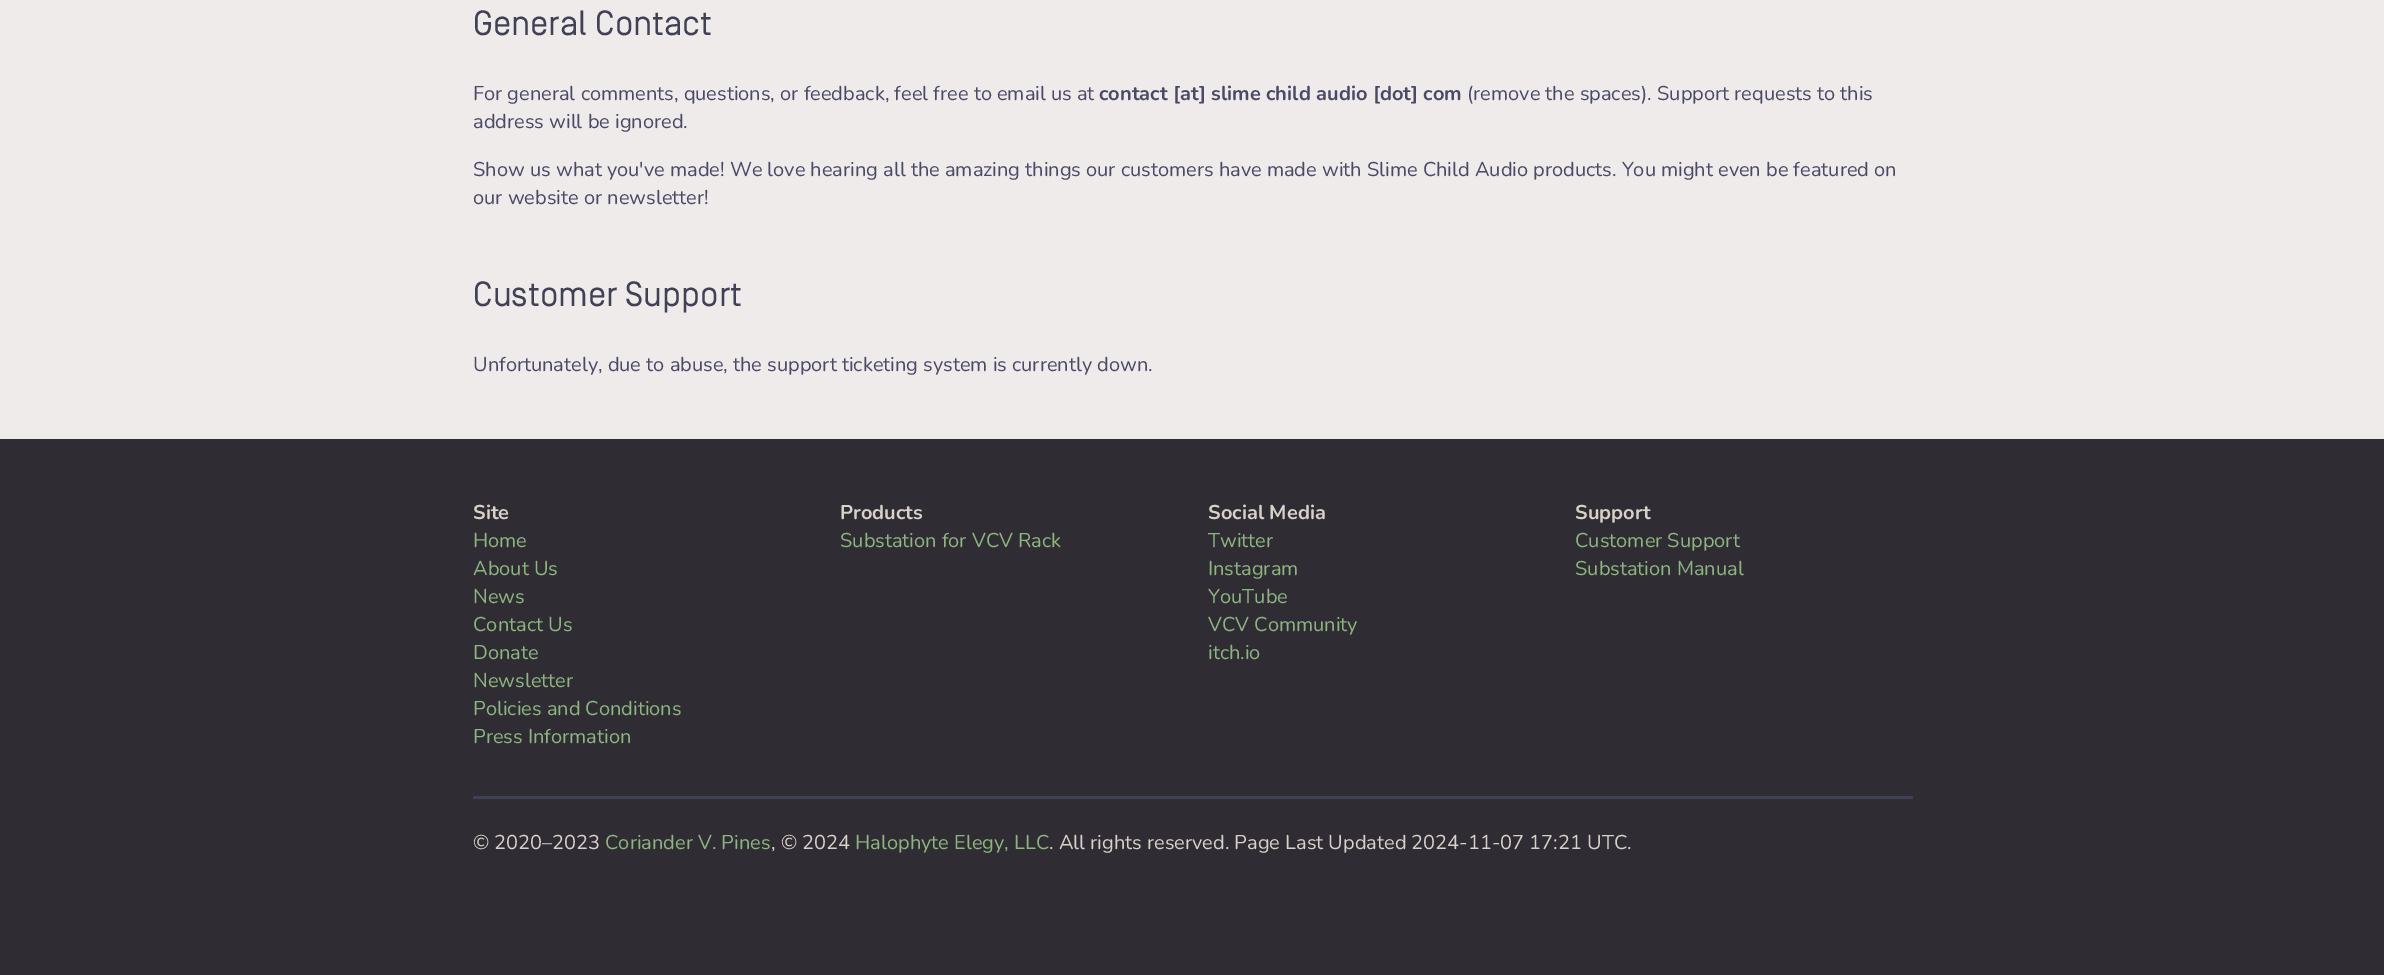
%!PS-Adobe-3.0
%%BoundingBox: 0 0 2384 975
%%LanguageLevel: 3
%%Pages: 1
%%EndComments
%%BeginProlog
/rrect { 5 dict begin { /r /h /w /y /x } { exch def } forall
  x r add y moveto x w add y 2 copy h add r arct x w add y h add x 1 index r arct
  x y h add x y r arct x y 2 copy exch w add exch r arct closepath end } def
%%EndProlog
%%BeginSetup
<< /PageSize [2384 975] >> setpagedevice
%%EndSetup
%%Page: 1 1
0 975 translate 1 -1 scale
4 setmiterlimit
0.188 0.173 0.2 setrgbcolor
0 0 2384 975 rectfill
0.937 0.922 0.918 setrgbcolor
0 0 2384 439 rectfill
0.255 0.255 0.337 setrgbcolor
473 796 1440 3 1.5 rrect fill
/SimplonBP-Regular [35 0 0 -35 0 0] selectfont
473 35 moveto (General Contact) show
/Nunito-Regular [20 0 0 -20 0 0] selectfont
0.29 0.29 0.4 setrgbcolor
473 100 moveto (For general comments, questions, or feedback, feel free to email us at) show
/Nunito-Bold [20 0 0 -20 0 0] selectfont
1099 100 moveto (contact [at] slime child audio [dot] com) show
/Nunito-Regular [20 0 0 -20 0 0] selectfont
1467 100 moveto (\(remove the spaces\). Support requests to this) show
473 128 moveto (address will be ignored.) show
473 176 moveto (Show us what you've made! We love hearing all the amazing things our customers have made with Slime Child Audio products. You might even be featured on) show
473 204 moveto (our website or newsletter!) show
/SimplonBP-Regular [35 0 0 -35 0 0] selectfont
0.255 0.255 0.337 setrgbcolor
473 306 moveto (Customer Support) show
/Nunito-Regular [20 0 0 -20 0 0] selectfont
0.29 0.29 0.4 setrgbcolor
473 371 moveto (Unfortunately, due to abuse, the support ticketing system is currently down.) show
/Nunito-Bold [20 0 0 -20 0 0] selectfont
0.847 0.82 0.788 setrgbcolor
473 519 moveto (Site) show
/Nunito-Regular [20 0 0 -20 0 0] selectfont
0.553 0.71 0.502 setrgbcolor
473 547 moveto (Home) show
473 575 moveto (About Us) show
473 603 moveto (News) show
473 631 moveto (Contact Us) show
473 659 moveto (Donate) show
473 687 moveto (Newsletter) show
473 715 moveto (Policies and Conditions) show
473 743 moveto (Press Information) show
/Nunito-Bold [20 0 0 -20 0 0] selectfont
0.847 0.82 0.788 setrgbcolor
840 519 moveto (Products) show
/Nunito-Regular [20 0 0 -20 0 0] selectfont
0.553 0.71 0.502 setrgbcolor
840 547 moveto (Substation for VCV Rack) show
/Nunito-Bold [20 0 0 -20 0 0] selectfont
0.847 0.82 0.788 setrgbcolor
1208 519 moveto (Social Media) show
/Nunito-Regular [20 0 0 -20 0 0] selectfont
0.553 0.71 0.502 setrgbcolor
1208 547 moveto (Twitter) show
1208 575 moveto (Instagram) show
1208 603 moveto (YouTube) show
1208 631 moveto (VCV Community) show
1208 659 moveto (itch.io) show
/Nunito-Bold [20 0 0 -20 0 0] selectfont
0.847 0.82 0.788 setrgbcolor
1575 519 moveto (Support) show
/Nunito-Regular [20 0 0 -20 0 0] selectfont
0.553 0.71 0.502 setrgbcolor
1575 547 moveto (Customer Support) show
1575 575 moveto (Substation Manual) show
0.847 0.82 0.788 setrgbcolor
473 849 moveto (© 2020–2023) show
0.553 0.71 0.502 setrgbcolor
605 849 moveto (Coriander V. Pines) show
0.847 0.82 0.788 setrgbcolor
771 849 moveto (, © 2024) show
0.553 0.71 0.502 setrgbcolor
855 849 moveto (Halophyte Elegy, LLC) show
0.847 0.82 0.788 setrgbcolor
1049 849 moveto (. All rights reserved. Page Last Updated 2024-11-07 17:21 UTC.) show
showpage
%%EOF
